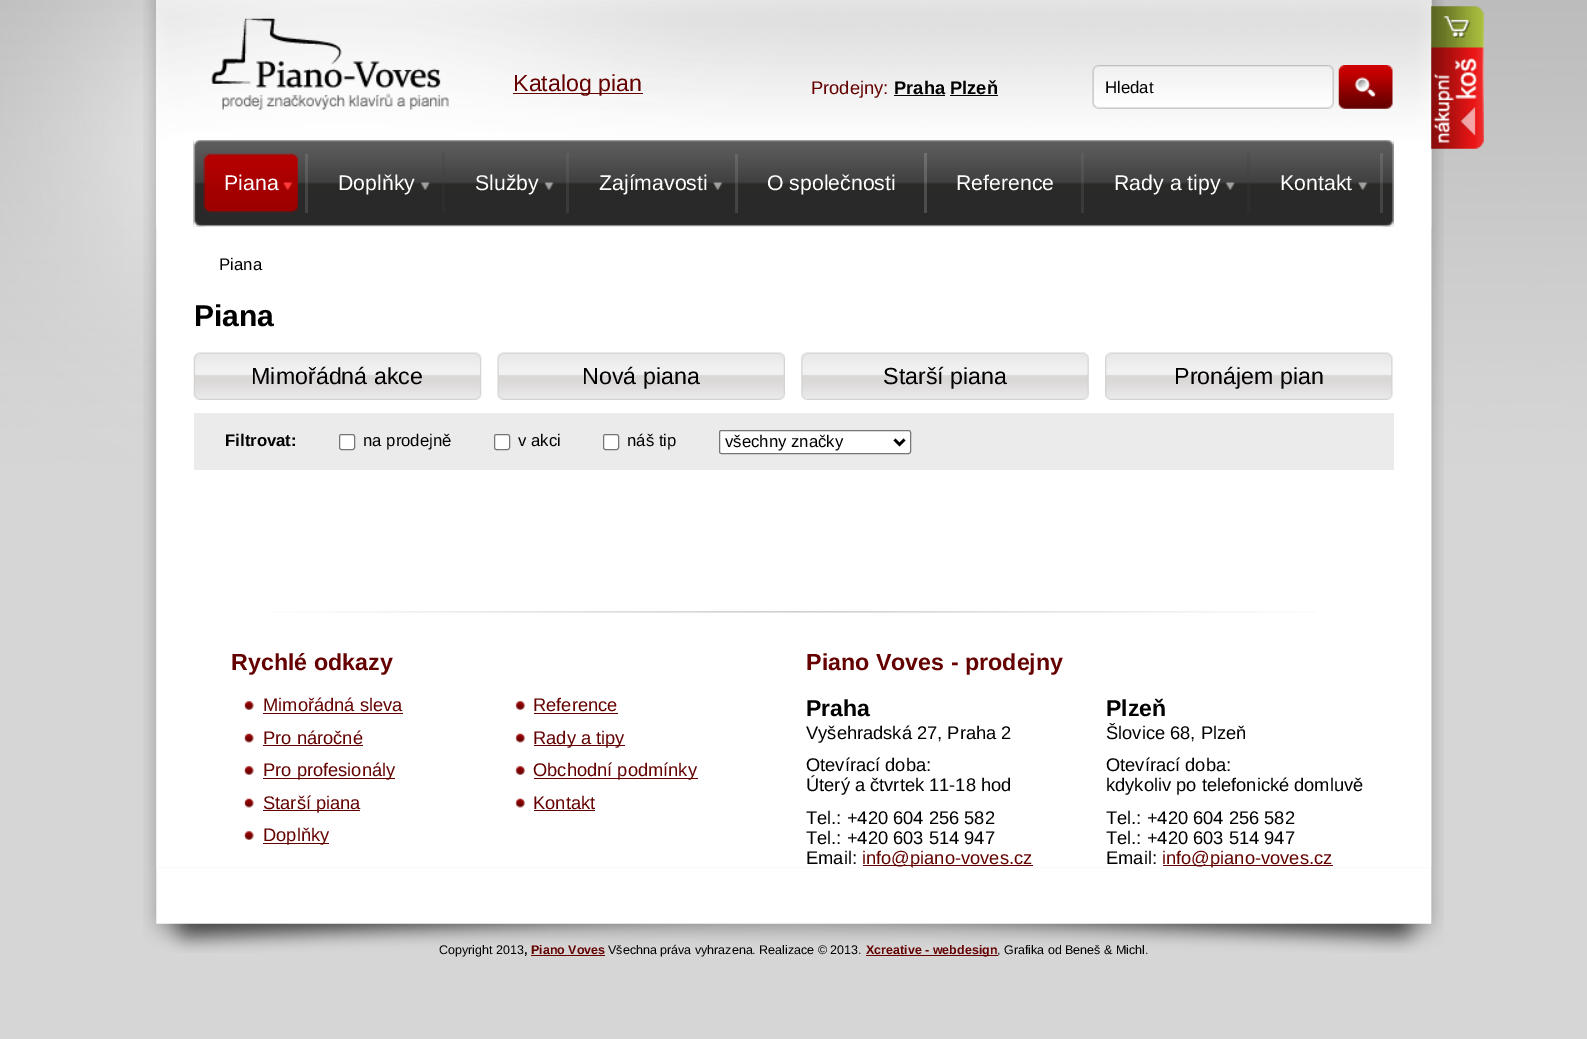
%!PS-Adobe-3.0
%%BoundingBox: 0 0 1587 1039
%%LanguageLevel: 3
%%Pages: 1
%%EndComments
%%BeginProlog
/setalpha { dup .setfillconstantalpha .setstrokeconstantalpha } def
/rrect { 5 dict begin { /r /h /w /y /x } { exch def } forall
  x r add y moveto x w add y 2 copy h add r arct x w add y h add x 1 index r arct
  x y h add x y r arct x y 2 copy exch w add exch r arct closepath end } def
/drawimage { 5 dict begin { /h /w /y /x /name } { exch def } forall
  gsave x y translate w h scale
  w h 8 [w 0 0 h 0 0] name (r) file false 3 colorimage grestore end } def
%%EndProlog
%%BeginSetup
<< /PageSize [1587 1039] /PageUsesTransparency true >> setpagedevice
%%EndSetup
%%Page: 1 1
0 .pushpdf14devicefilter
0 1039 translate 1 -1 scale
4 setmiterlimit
0.839 setgray
0 0 1587 1039 rectfill
(images/1.raw) 0 0 1587 868 drawimage
(images/2.raw) 143 0 1301 868 drawimage
(images/3.raw) 156 0 1276 228 drawimage
(images/4.raw) 211 18 238 92 drawimage
0.392 0 0 setrgbcolor
513 93 130 1 rectfill
0 setgray
894 95 51 1 rectfill
950 95 48 1 rectfill
(images/5.raw) 1092 65 242 44 drawimage
(images/6.raw) 1338 65 55 44 drawimage
(images/7.raw) 1431 6 53 143 drawimage
(images/8.raw) 193 140 1201 87 drawimage
(images/9.raw) 193 140 12 87 drawimage
(images/10.raw) 1382 140 12 87 drawimage
0.2 setalpha
0.686 setgray
305 154 3 59 rectfill
1 setalpha
(images/11.raw) 203 153 95 60 drawimage
(images/12.raw) 290 153 8 60 drawimage
(images/13.raw) 203 153 8 60 drawimage
(images/14.raw) 283 182 10 8 drawimage
0.2 setalpha
0.235 setgray
442 153 3 60 rectfill
1 setalpha
(images/15.raw) 421 182 9 8 drawimage
0.2 setalpha
0.49 setgray
566 153 3 60 rectfill
1 setalpha
(images/16.raw) 544 182 10 8 drawimage
0.2 setalpha
0.686 setgray
735 154 3 59 rectfill
1 setalpha
(images/17.raw) 713 182 10 8 drawimage
0.2 setalpha
0.863 setgray
924 153 3 60 rectfill
0.49 setgray
1081 153 3 60 rectfill
0.235 setgray
1247 153 3 60 rectfill
1 setalpha
(images/18.raw) 1226 182 9 8 drawimage
0.2 setalpha
0.686 setgray
1380 153 3 60 rectfill
1 setalpha
(images/17.raw) 1358 182 10 8 drawimage
(images/19.raw) 193 352 289 48 drawimage
(images/20.raw) 497 352 288 48 drawimage
(images/21.raw) 801 352 288 48 drawimage
(images/22.raw) 1105 352 288 48 drawimage
0.922 setgray
194 413 1200 57 rectfill
1 setgray
339.5 434.5 15 15 2 rrect gsave fill grestore
0.463 setgray
stroke
1 setgray
494.5 434.5 15 15 2 rrect gsave fill grestore
0.463 setgray
stroke
1 setgray
603.5 434.5 15 15 2 rrect gsave fill grestore
0.463 setgray
stroke
1 setgray
719.5 430.5 191 23 2 rrect gsave fill grestore
0.463 setgray
stroke
0 setgray
2.5 setlinewidth
newpath 894.5 439.5 moveto 899.5 444.5 lineto 904.5 439.5 lineto stroke
(images/23.raw) 271 611 1046 2 drawimage
(images/24.raw) 243 701 11 9 drawimage
0.392 0 0 setrgbcolor
263 713 140 1 rectfill
(images/25.raw) 243 733 11 10 drawimage
263 745 100 1 rectfill
(images/24.raw) 243 766 11 9 drawimage
263 778 132 1 rectfill
(images/25.raw) 243 798 11 10 drawimage
263 810 97 1 rectfill
(images/24.raw) 243 831 11 9 drawimage
263 843 66 1 rectfill
(images/26.raw) 515 701 10 9 drawimage
534 713 84 1 rectfill
(images/27.raw) 515 733 10 10 drawimage
534 745 91 1 rectfill
(images/26.raw) 515 766 10 9 drawimage
534 778 164 1 rectfill
(images/27.raw) 515 798 10 10 drawimage
534 810 61 1 rectfill
863 865 170 1 rectfill
1163 865 170 1 rectfill
531 955 74 1 rectfill
866 955 132 1 rectfill
/LiberationSans-Regular [23.25 0 0 -23.25 0 0] selectfont
513 91 moveto (Katalog pian) show
/LiberationSans-Regular [18.3 0 0 -18.3 0 0] selectfont
811 94 moveto (Prodejny:) show
/LiberationSans-Bold [18.3 0 0 -18.3 0 0] selectfont
0 setgray
894 94 moveto (Praha Plzeň) show
/LiberationSans-Regular [16.75 0 0 -16.75 0 0] selectfont
1105 93 moveto (Hledat) show
/LiberationSans-Regular [21.25 0 0 -21.25 0 0] selectfont
1 setgray
224 190 moveto (Piana) show
338 190 moveto (Doplňky) show
475 190 moveto (Služby) show
599 190 moveto (Zajímavosti) show
767 190 moveto (O společnosti) show
956 190 moveto (Reference) show
1114 190 moveto (Rady a tipy) show
1280 190 moveto (Kontakt) show
/LiberationSans-Regular [16.75 0 0 -16.75 0 0] selectfont
0 setgray
219 270 moveto (Piana) show
/LiberationSans-Bold [30 0 0 -30 0 0] selectfont
194 326 moveto (Piana) show
/LiberationSans-Regular [23.25 0 0 -23.25 0 0] selectfont
251 384 moveto (Mimořádná akce) show
582 384 moveto (Nová piana) show
883 384 moveto (Starší piana) show
1174 384 moveto (Pronájem pian) show
/LiberationSans-Bold [16.75 0 0 -16.75 0 0] selectfont
225 446 moveto (Filtrovat:) show
/LiberationSans-Regular [16.75 0 0 -16.75 0 0] selectfont
363 446 moveto (na prodejně) show
518 446 moveto (v akci) show
627 446 moveto (náš tip) show
725 447 moveto (všechny značky) show
/LiberationSans-Bold [23.25 0 0 -23.25 0 0] selectfont
0.392 0 0 setrgbcolor
231 670 moveto (Rychlé odkazy) show
/LiberationSans-Regular [18.3 0 0 -18.3 0 0] selectfont
263 711 moveto (Mimořádná sleva) show
263 744 moveto (Pro náročné) show
263 776 moveto (Pro profesionály) show
263 809 moveto (Starší piana) show
263 841 moveto (Doplňky) show
533 711 moveto (Reference) show
533 744 moveto (Rady a tipy) show
533 776 moveto (Obchodní podmínky) show
533 809 moveto (Kontakt) show
/LiberationSans-Bold [23.25 0 0 -23.25 0 0] selectfont
806 670 moveto (Piano Voves - prodejny) show
/LiberationSans-Bold [23 0 0 -23 0 0] selectfont
0 setgray
806 716 moveto (Praha) show
/LiberationSans-Regular [18.3 0 0 -18.3 0 0] selectfont
806 739 moveto (Vyšehradská 27, Praha 2) show
806 771 moveto (Otevírací doba:) show
806 791 moveto (Úterý a čtvrtek 11-18 hod) show
806 824 moveto (Tel.: +420 604 256 582) show
806 844 moveto (Tel.: +420 603 514 947) show
806 864 moveto (Email:) show
0.392 0 0 setrgbcolor
862 864 moveto (info@piano-voves.cz) show
/LiberationSans-Bold [23 0 0 -23 0 0] selectfont
0 setgray
1106 716 moveto (Plzeň) show
/LiberationSans-Regular [18.3 0 0 -18.3 0 0] selectfont
1106 739 moveto (Šlovice 68, Plzeň) show
1106 771 moveto (Otevírací doba:) show
1106 791 moveto (kdykoliv po telefonické domluvě) show
1106 824 moveto (Tel.: +420 604 256 582) show
1106 844 moveto (Tel.: +420 603 514 947) show
1106 864 moveto (Email:) show
0.392 0 0 setrgbcolor
1162 864 moveto (info@piano-voves.cz) show
(images/28.raw) 143 867 1301 86 drawimage
/LiberationSans-Regular [12.5 0 0 -12.5 0 0] selectfont
0 setgray
439 954 moveto (Copyright 2013) show
/LiberationSans-Bold [12.5 0 0 -12.5 0 0] selectfont
524 954 moveto (,) show
0.392 0 0 setrgbcolor
531 954 moveto (Piano Voves) show
/LiberationSans-Regular [12.5 0 0 -12.5 0 0] selectfont
0 setgray
608 954 moveto (Všechna práva vyhrazena. Realizace © 2013.) show
/LiberationSans-Bold [12.5 0 0 -12.5 0 0] selectfont
0.392 0 0 setrgbcolor
866 954 moveto (Xcreative - webdesign) show
/LiberationSans-Regular [12.5 0 0 -12.5 0 0] selectfont
0 setgray
997 954 moveto (, Grafika od Beneš & Michl.) show
.poppdf14devicefilter showpage
%%EOF
